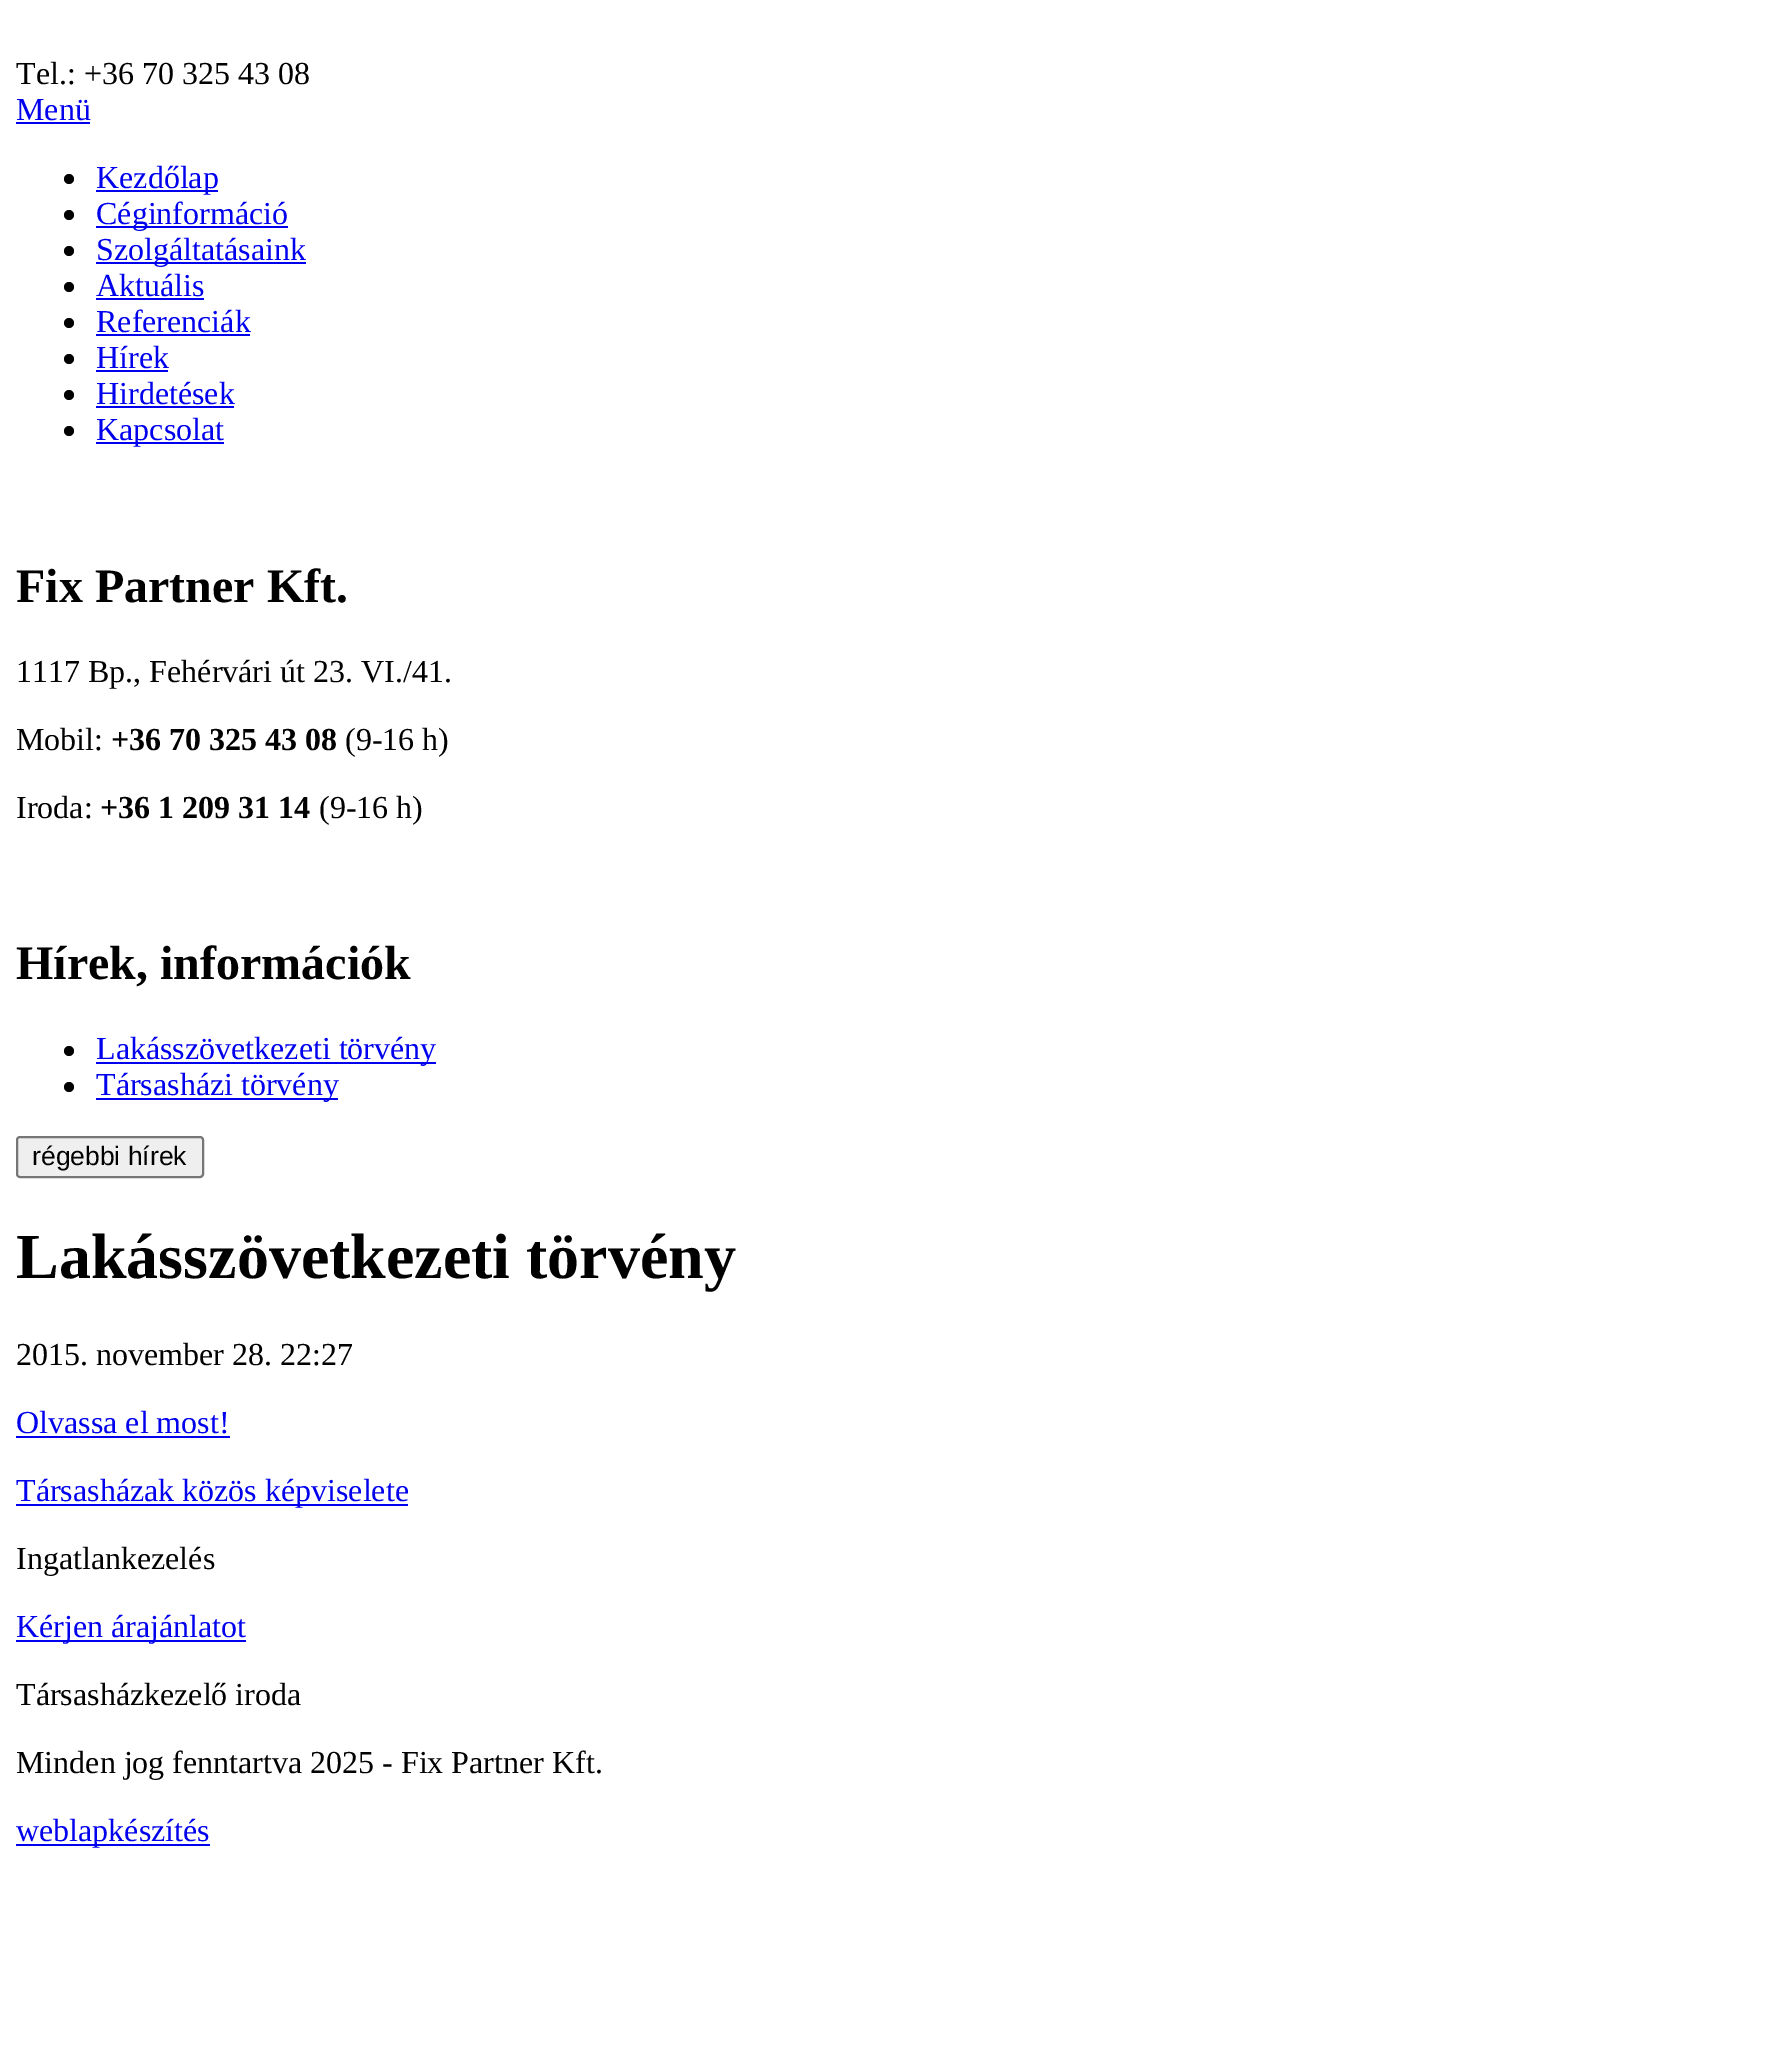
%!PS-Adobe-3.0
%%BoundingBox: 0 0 1790 2068
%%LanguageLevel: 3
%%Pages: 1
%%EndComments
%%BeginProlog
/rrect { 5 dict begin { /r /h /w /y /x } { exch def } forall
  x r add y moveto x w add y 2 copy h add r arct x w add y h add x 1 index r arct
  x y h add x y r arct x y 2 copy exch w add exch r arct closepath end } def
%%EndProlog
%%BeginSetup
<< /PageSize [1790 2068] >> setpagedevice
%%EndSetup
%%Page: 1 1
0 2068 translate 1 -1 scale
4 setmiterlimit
1 setgray
0 0 1790 2068 rectfill
0 0 0.933 setrgbcolor
16 122 74 2 rectfill
0 setgray
newpath 69 179 5 0 360 arc closepath fill
0 0 0.933 setrgbcolor
96 190 122 2 rectfill
0 setgray
newpath 69 215 5 0 360 arc closepath fill
0 0 0.933 setrgbcolor
96 226 192 2 rectfill
0 setgray
newpath 69 251 5 0 360 arc closepath fill
0 0 0.933 setrgbcolor
96 262 210 2 rectfill
0 setgray
newpath 69 287 5 0 360 arc closepath fill
0 0 0.933 setrgbcolor
96 298 108 2 rectfill
0 setgray
newpath 69 323 5 0 360 arc closepath fill
0 0 0.933 setrgbcolor
96 334 154 2 rectfill
0 setgray
newpath 69 359 5 0 360 arc closepath fill
0 0 0.933 setrgbcolor
96 370 72 2 rectfill
0 setgray
newpath 69 395 5 0 360 arc closepath fill
0 0 0.933 setrgbcolor
96 406 138 2 rectfill
0 setgray
newpath 69 431 5 0 360 arc closepath fill
0 0 0.933 setrgbcolor
96 442 128 2 rectfill
0 setgray
newpath 69 1051 5 0 360 arc closepath fill
0 0 0.933 setrgbcolor
96 1062 340 2 rectfill
0 setgray
newpath 69 1087 5 0 360 arc closepath fill
0 0 0.933 setrgbcolor
96 1098 242 2 rectfill
0.937 setgray
17 1137 186 40 3 rrect gsave fill grestore
0.463 setgray
2 setlinewidth
stroke
0 0 0.933 setrgbcolor
16 1436 214 2 rectfill
16 1504 392 2 rectfill
16 1640 230 2 rectfill
16 1844 194 2 rectfill
/LiberationSerif-Regular [32 0 0 -32 0 0] selectfont
0 setgray
16 84 moveto (Tel.: +36 70 325 43 08) show
0 0 0.933 setrgbcolor
16 120 moveto (Menü) show
96 188 moveto (Kezdőlap) show
96 224 moveto (Céginformáció) show
96 260 moveto (Szolgáltatásaink) show
96 296 moveto (Aktuális) show
96 332 moveto (Referenciák) show
96 368 moveto (Hírek) show
96 404 moveto (Hirdetések) show
96 440 moveto (Kapcsolat) show
/LiberationSerif-Bold [48 0 0 -48 0 0] selectfont
0 setgray
16 602 moveto (Fix Partner Kft.) show
/LiberationSerif-Regular [32 0 0 -32 0 0] selectfont
16 682 moveto (1117 Bp., Fehérvári út 23. VI./41.) show
16 750 moveto (Mobil:) show
/LiberationSerif-Bold [32 0 0 -32 0 0] selectfont
111 750 moveto (+36 70 325 43 08) show
/LiberationSerif-Regular [32 0 0 -32 0 0] selectfont
345 750 moveto (\(9-16 h\)) show
16 818 moveto (Iroda:) show
/LiberationSerif-Bold [32 0 0 -32 0 0] selectfont
100 818 moveto (+36 1 209 31 14) show
/LiberationSerif-Regular [32 0 0 -32 0 0] selectfont
319 818 moveto (\(9-16 h\)) show
/LiberationSerif-Bold [48 0 0 -48 0 0] selectfont
16 979 moveto (Hírek, információk) show
/LiberationSerif-Regular [32 0 0 -32 0 0] selectfont
0 0 0.933 setrgbcolor
96 1059 moveto (Lakásszövetkezeti törvény) show
96 1095 moveto (Társasházi törvény) show
/LiberationSans-Regular [26.5 0 0 -26.5 0 0] selectfont
0 setgray
32 1165 moveto (régebbi hírek) show
/LiberationSerif-Bold [64 0 0 -64 0 0] selectfont
16 1278 moveto (Lakásszövetkezeti törvény) show
/LiberationSerif-Regular [32 0 0 -32 0 0] selectfont
16 1365 moveto (2015. november 28. 22:27) show
0 0 0.933 setrgbcolor
16 1433 moveto (Olvassa el most!) show
16 1501 moveto (Társasházak közös képviselete) show
0 setgray
16 1569 moveto (Ingatlankezelés) show
0 0 0.933 setrgbcolor
16 1637 moveto (Kérjen árajánlatot) show
0 setgray
16 1705 moveto (Társasházkezelő iroda) show
16 1773 moveto (Minden jog fenntartva 2025 - Fix Partner Kft.) show
0 0 0.933 setrgbcolor
16 1841 moveto (weblapkészítés) show
showpage
%%EOF
